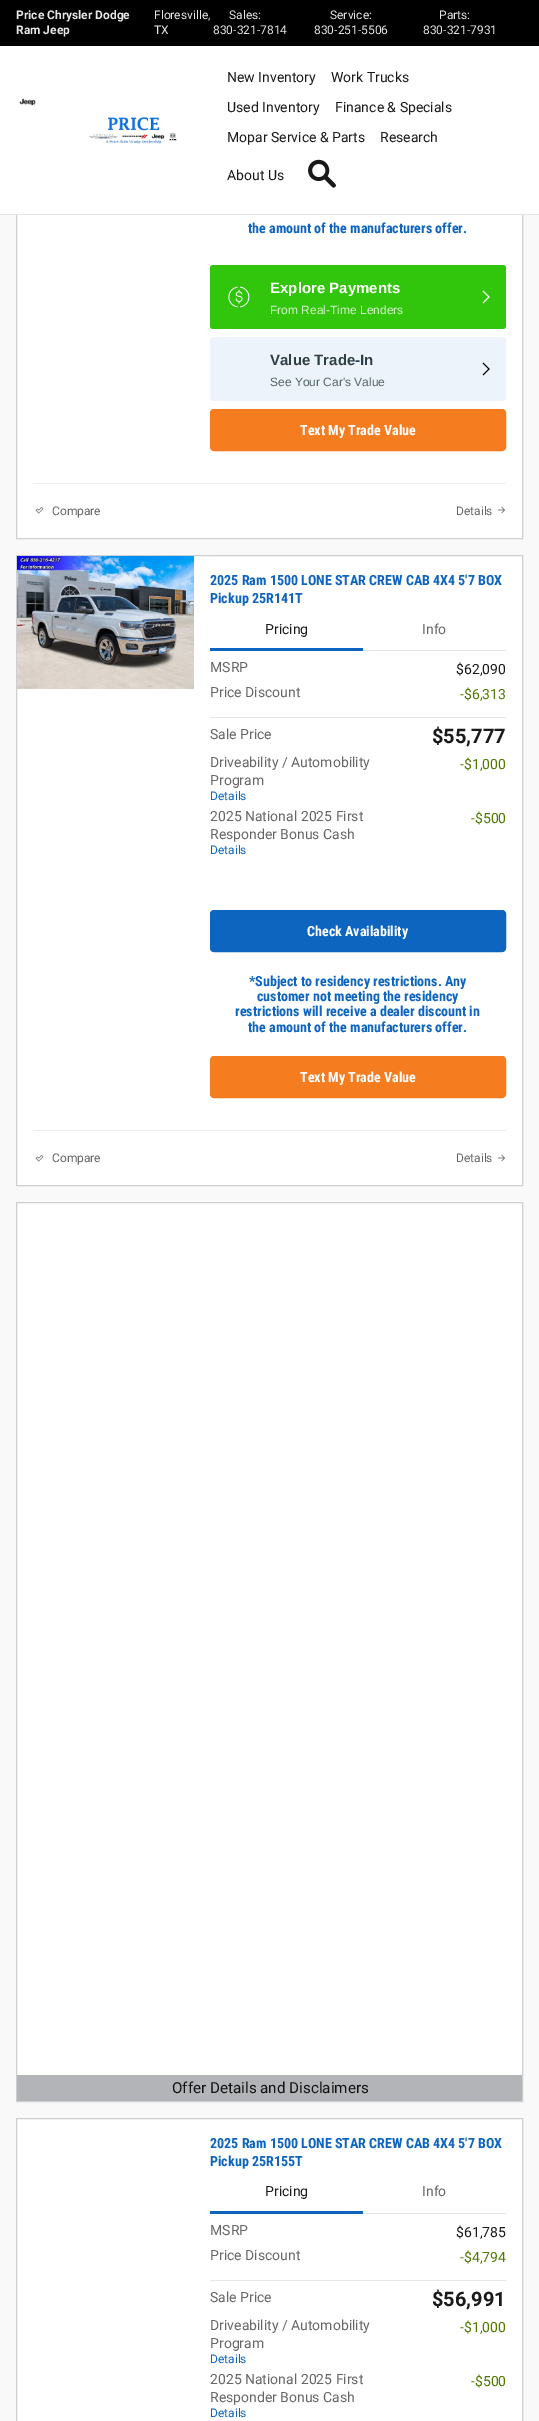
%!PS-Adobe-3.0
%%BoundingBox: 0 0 539 2421
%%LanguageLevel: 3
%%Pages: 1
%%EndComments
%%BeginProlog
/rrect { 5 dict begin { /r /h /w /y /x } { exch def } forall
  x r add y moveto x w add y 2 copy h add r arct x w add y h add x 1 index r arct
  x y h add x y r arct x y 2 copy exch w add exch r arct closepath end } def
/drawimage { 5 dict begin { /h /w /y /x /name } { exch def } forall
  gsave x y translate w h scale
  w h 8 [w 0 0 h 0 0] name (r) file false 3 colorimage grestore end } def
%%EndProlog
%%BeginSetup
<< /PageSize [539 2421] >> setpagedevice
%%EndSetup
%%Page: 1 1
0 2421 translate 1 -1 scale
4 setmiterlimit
0.976 0.976 0.98 setrgbcolor
0 0 539 2421 rectfill
1 setgray
17 215 505 323 rectfill
0.808 0.812 0.82 setrgbcolor
16.5 -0.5 506 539 rectstroke
1 setgray
0 46 539 168 rectfill
0.902 setgray
0 214 539 1 rectfill
0 setgray
0 0 539 46 rectfill
(images/1.raw) 19 98 17 8 drawimage
(images/2.raw) 89 117 88 27 drawimage
(images/3.raw) 308 159 28 29 drawimage
0.192 0.773 0.043 setrgbcolor
210 265 296 64 3 rrect fill
(images/4.raw) 228 286 22 22 drawimage
1 setgray
newpath 483 291 moveto 489 297 lineto 483 303 lineto stroke
0.925 0.953 0.98 setrgbcolor
210 337 296 64 3 rrect fill
0 setgray
newpath 483 363 moveto 489 369 lineto 483 375 lineto stroke
0.961 0.49 0.122 setrgbcolor
210.5 409.5 295 41 3.5 rrect gsave fill grestore
stroke
0.933 setgray
33 483 473 1 rectfill
(images/5.raw) 35 507 9 7 drawimage
(images/6.raw) 497 506 8 8 drawimage
1 setgray
newpath 16.5 555.5 moveto 522.5 555.5 lineto 522.5 1185.5 lineto 16.5 1185.5 lineto closepath gsave fill grestore
0.808 0.812 0.82 setrgbcolor
stroke
(images/7.raw) 17 556 177 133 drawimage
0.894 0.898 0.902 setrgbcolor
363 650 143 1 rectfill
0.051 0.396 0.749 setrgbcolor
210 648 153 3 rectfill
0.902 setgray
210 717 296 1 rectfill
0.051 0.396 0.749 setrgbcolor
210.5 910.5 295 41 3.5 rrect gsave fill grestore
stroke
0.961 0.49 0.122 setrgbcolor
210.5 1056.5 295 41 3.5 rrect gsave fill grestore
stroke
0.933 setgray
33 1130 473 1 rectfill
(images/5.raw) 35 1155 9 7 drawimage
(images/6.raw) 497 1154 8 8 drawimage
1 setgray
17 1203 505 872 rectfill
0.808 0.812 0.82 setrgbcolor
16.5 1202.5 506 899 rectstroke
0.702 0.706 0.718 setrgbcolor
17 2075 505 26 rectfill
1 setgray
newpath 16.5 2118.5 moveto 522.5 2118.5 lineto 522.5 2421.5 lineto 16.5 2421.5 lineto closepath gsave fill grestore
0.808 0.812 0.82 setrgbcolor
stroke
0.894 0.898 0.902 setrgbcolor
363 2213 143 1 rectfill
0.051 0.396 0.749 setrgbcolor
210 2211 153 3 rectfill
0.902 setgray
210 2280 296 1 rectfill
/Roboto-Bold [12 0 0 -12 0 0] selectfont
16 19 moveto (Price Chrysler Dodge) show
16 34 moveto (Ram Jeep) show
/Roboto-Regular [12 0 0 -12 0 0] selectfont
154 19 moveto (Floresville,) show
154 34 moveto (TX) show
229 19 moveto (Sales:) show
213 34 moveto (830-321-7814) show
330 19 moveto (Service:) show
314 34 moveto (830-251-5506) show
439 19 moveto (Parts:) show
423 34 moveto (830-321-7931) show
/Roboto-Regular [14 0 0 -14 0 0] selectfont
0.102 setgray
227 82 moveto (New Inventory) show
331 82 moveto (Work Trucks) show
227 112 moveto (Used Inventory) show
335 112 moveto (Finance & Specials) show
227 142 moveto (Mopar Service & Parts) show
380 142 moveto (Research) show
227 180 moveto (About Us) show
/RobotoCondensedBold-Bold [14 0 0 -14 0 0] selectfont
0.051 0.396 0.749 setrgbcolor
248 233 moveto (the amount of the manufacturers offer.) show
gsave
270 279 221 17 rectclip
/LiberationSans-Bold [15 0 0 -15 0 0] selectfont
1 setgray
270 293 moveto (Explore Payments) show
grestore
/LiberationSans-Regular [12 0 0 -12 0 0] selectfont
0.839 0.953 0.808 setrgbcolor
270 314 moveto (From Real-Time Lenders) show
/LiberationSans-Bold [15 0 0 -15 0 0] selectfont
0.188 0.243 0.286 setrgbcolor
270 365 moveto (Value Trade-In) show
/LiberationSans-Regular [12 0 0 -12 0 0] selectfont
0.337 0.384 0.424 setrgbcolor
270 386 moveto (See Your Car's Value) show
/RobotoCondensedBold-Bold [14 0 0 -14 0 0] selectfont
1 setgray
300 435 moveto (Text My Trade Value) show
/Roboto-Regular [12 0 0 -12 0 0] selectfont
0.4 setgray
52 515 moveto (Compare) show
456 515 moveto (Details) show
/RobotoCondensedBold-Bold [14 0 0 -14 0 0] selectfont
0.051 0.396 0.749 setrgbcolor
210 585 moveto (2025 Ram 1500 LONE STAR CREW CAB 4X4 5'7 BOX) show
210 603 moveto (Pickup 25R141T) show
/Roboto-Regular [14 0 0 -14 0 0] selectfont
0.102 setgray
265 634 moveto (Pricing) show
0.4 setgray
422 634 moveto (Info) show
210 672 moveto (MSRP) show
0.102 setgray
456 674 moveto ($62,090) show
0.4 setgray
210 697 moveto (Price Discount) show
0.306 0.478 0 setrgbcolor
460 699 moveto (-$6,313) show
0.4 setgray
210 739 moveto (Sale Price) show
/Roboto-Bold [20 0 0 -20 0 0] selectfont
0.102 setgray
432 743 moveto ($55,777) show
/Roboto-Regular [14 0 0 -14 0 0] selectfont
0.4 setgray
210 767 moveto (Driveability / Automobility) show
210 785 moveto (Program) show
/Roboto-Regular [12 0 0 -12 0 0] selectfont
0.051 0.396 0.749 setrgbcolor
210 800 moveto (Details) show
/Roboto-Regular [14 0 0 -14 0 0] selectfont
0.306 0.478 0 setrgbcolor
460 769 moveto (-$1,000) show
0.4 setgray
210 821 moveto (2025 National 2025 First) show
210 839 moveto (Responder Bonus Cash) show
/Roboto-Regular [12 0 0 -12 0 0] selectfont
0.051 0.396 0.749 setrgbcolor
210 854 moveto (Details) show
/Roboto-Regular [14 0 0 -14 0 0] selectfont
0.306 0.478 0 setrgbcolor
471 823 moveto (-$500) show
/RobotoCondensedBold-Bold [14 0 0 -14 0 0] selectfont
1 setgray
307 936 moveto (Check Availability) show
0.051 0.396 0.749 setrgbcolor
249 986 moveto (*Subject to residency restrictions. Any) show
257 1001 moveto (customer not meeting the residency) show
235 1016 moveto (restrictions will receive a dealer discount in) show
248 1032 moveto (the amount of the manufacturers offer.) show
1 setgray
300 1082 moveto (Text My Trade Value) show
/Roboto-Regular [12 0 0 -12 0 0] selectfont
0.4 setgray
52 1162 moveto (Compare) show
456 1162 moveto (Details) show
/Roboto-Regular [15.2 0 0 -15.2 0 0] selectfont
0.071 setgray
172 2093 moveto (Offer Details and Disclaimers) show
/RobotoCondensedBold-Bold [14 0 0 -14 0 0] selectfont
0.051 0.396 0.749 setrgbcolor
210 2148 moveto (2025 Ram 1500 LONE STAR CREW CAB 4X4 5'7 BOX) show
210 2166 moveto (Pickup 25R155T) show
/Roboto-Regular [14 0 0 -14 0 0] selectfont
0.102 setgray
265 2196 moveto (Pricing) show
0.4 setgray
422 2196 moveto (Info) show
210 2235 moveto (MSRP) show
0.102 setgray
456 2237 moveto ($61,785) show
0.4 setgray
210 2260 moveto (Price Discount) show
0.306 0.478 0 setrgbcolor
460 2262 moveto (-$4,794) show
0.4 setgray
210 2302 moveto (Sale Price) show
/Roboto-Bold [20 0 0 -20 0 0] selectfont
0.102 setgray
432 2306 moveto ($56,991) show
/Roboto-Regular [14 0 0 -14 0 0] selectfont
0.4 setgray
210 2330 moveto (Driveability / Automobility) show
210 2348 moveto (Program) show
/Roboto-Regular [12 0 0 -12 0 0] selectfont
0.051 0.396 0.749 setrgbcolor
210 2363 moveto (Details) show
/Roboto-Regular [14 0 0 -14 0 0] selectfont
0.306 0.478 0 setrgbcolor
460 2332 moveto (-$1,000) show
0.4 setgray
210 2384 moveto (2025 National 2025 First) show
210 2402 moveto (Responder Bonus Cash) show
/Roboto-Regular [12 0 0 -12 0 0] selectfont
0.051 0.396 0.749 setrgbcolor
210 2417 moveto (Details) show
/Roboto-Regular [14 0 0 -14 0 0] selectfont
0.306 0.478 0 setrgbcolor
471 2386 moveto (-$500) show
showpage
%%EOF
